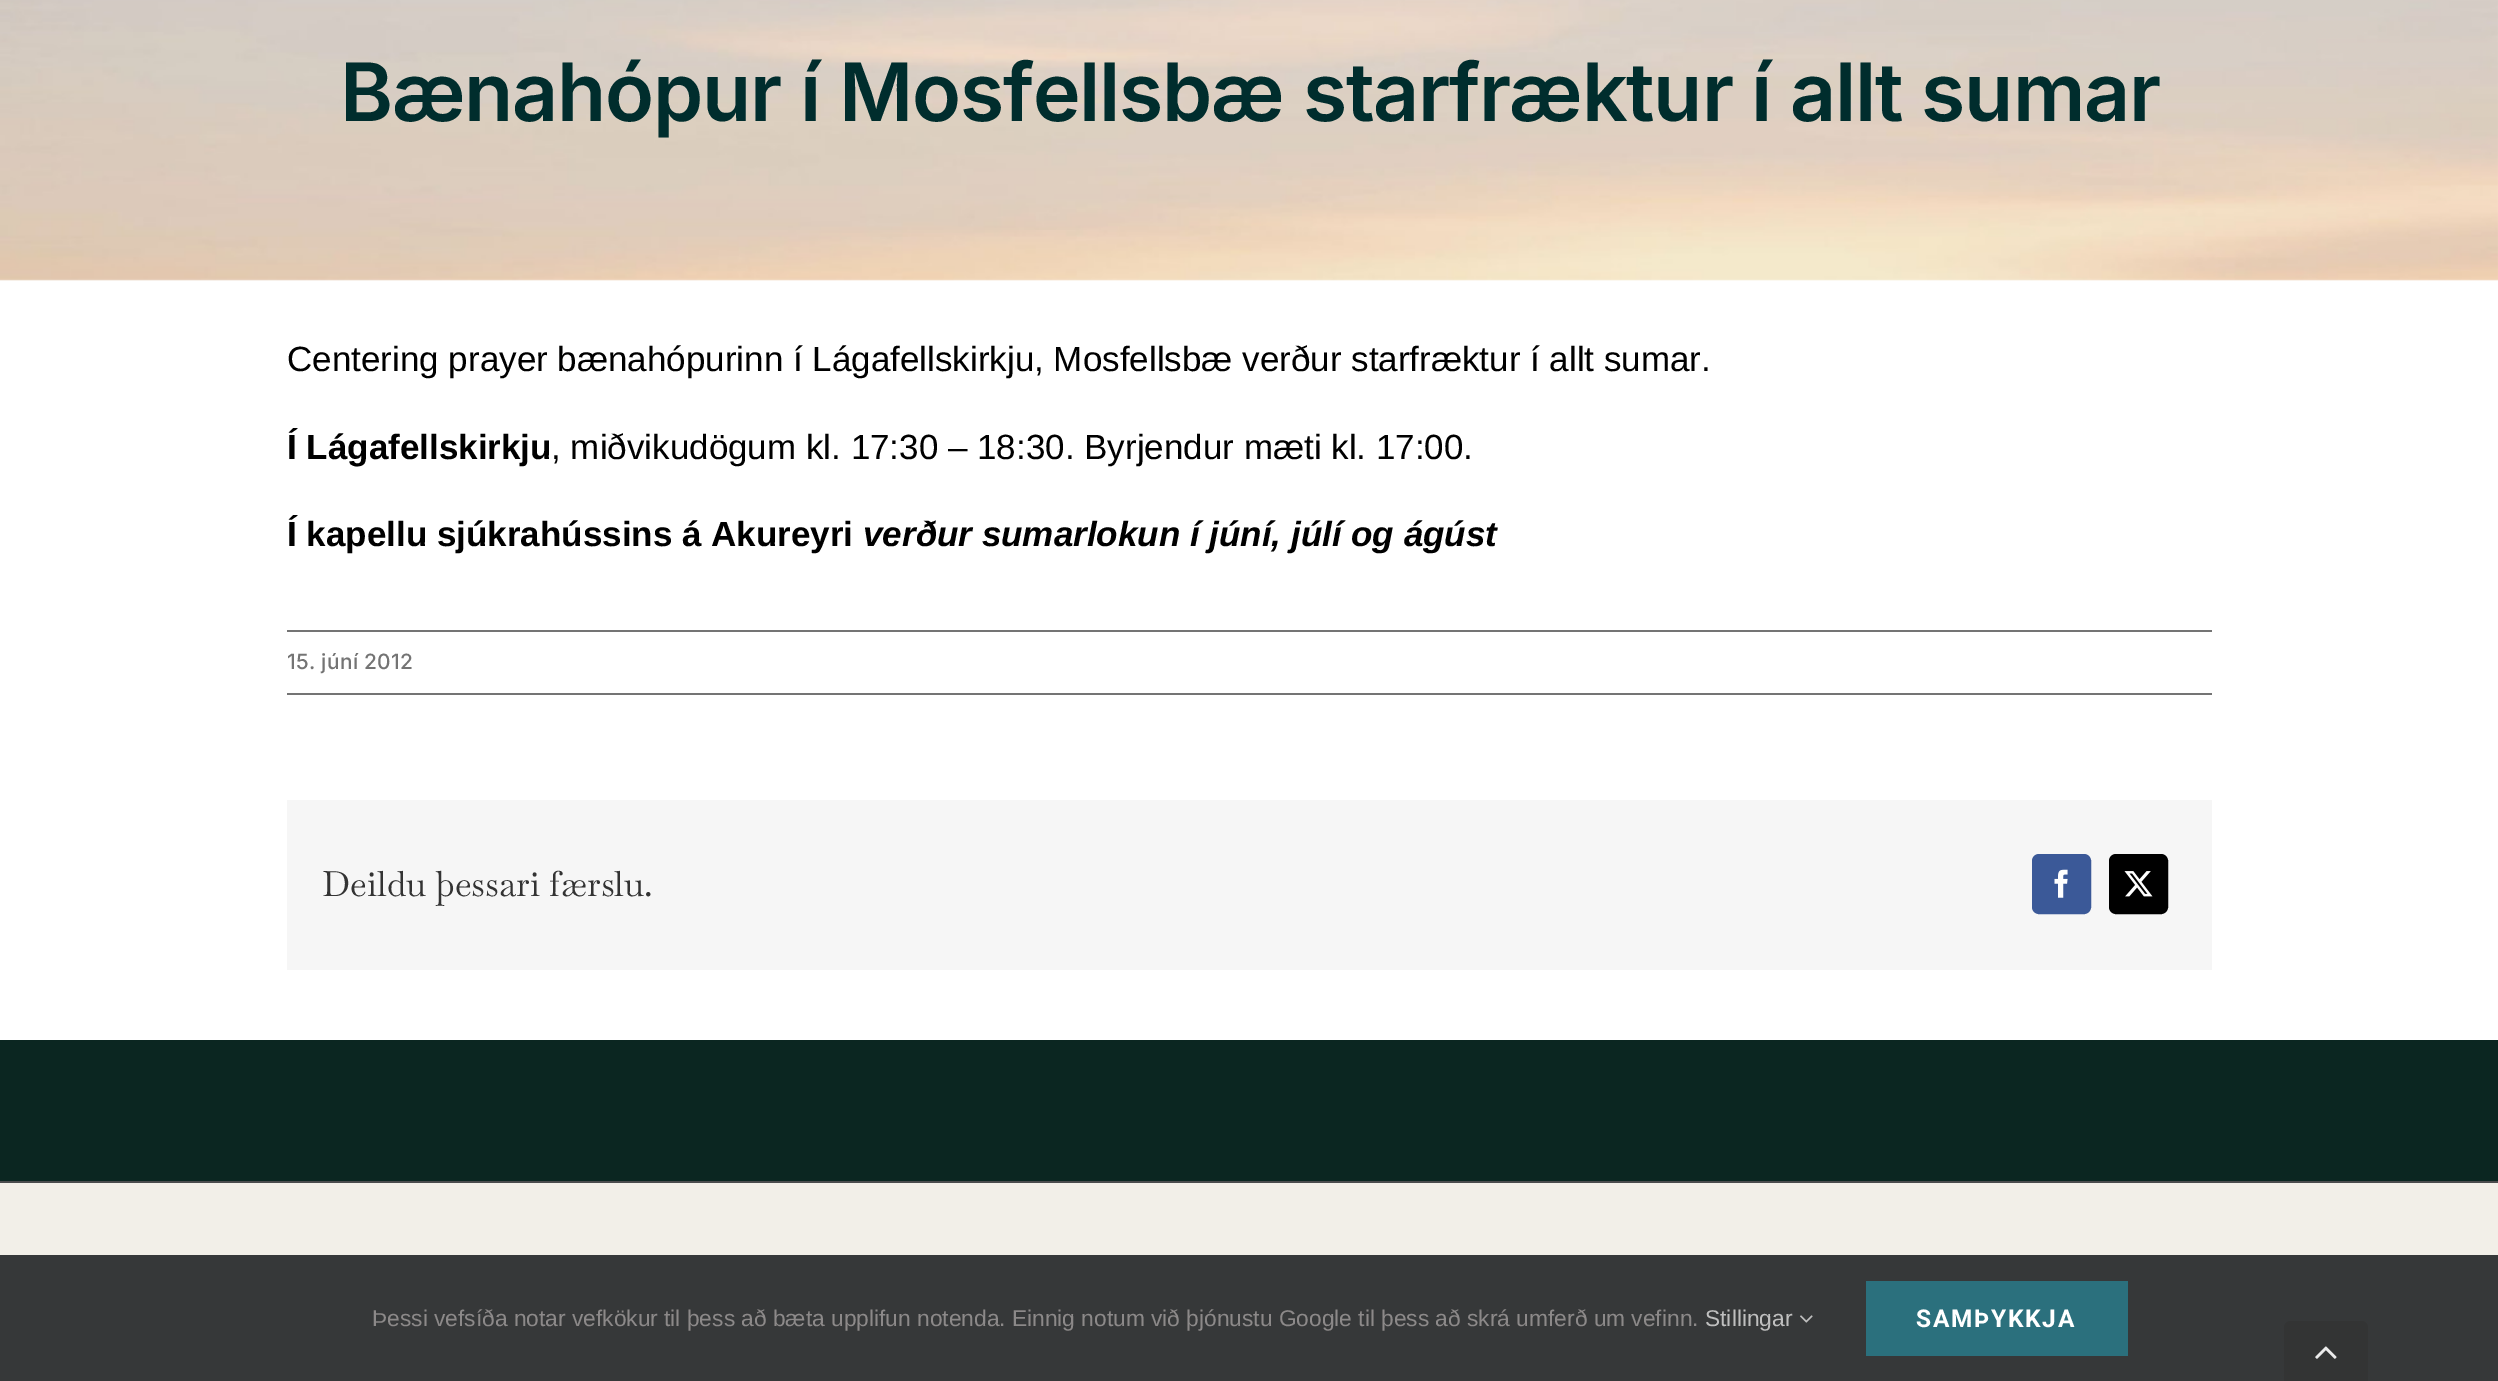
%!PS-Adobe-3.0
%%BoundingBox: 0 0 2498 1381
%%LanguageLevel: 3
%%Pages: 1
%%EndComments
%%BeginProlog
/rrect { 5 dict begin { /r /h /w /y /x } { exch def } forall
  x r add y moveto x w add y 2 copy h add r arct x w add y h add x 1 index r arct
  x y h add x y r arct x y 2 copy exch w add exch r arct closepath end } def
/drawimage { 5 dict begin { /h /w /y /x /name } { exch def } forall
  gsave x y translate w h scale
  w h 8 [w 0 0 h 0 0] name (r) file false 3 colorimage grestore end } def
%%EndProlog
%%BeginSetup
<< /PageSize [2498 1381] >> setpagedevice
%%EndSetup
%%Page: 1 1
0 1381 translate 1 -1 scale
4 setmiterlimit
0.043 0.149 0.129 setrgbcolor
0 0 2498 1381 rectfill
1 setgray
0 0 2498 1040 rectfill
(images/1.raw) 0 0 2498 281 drawimage
0.455 setgray
287 630 1925 2 rectfill
287 693 1925 2 rectfill
0.965 setgray
287 800 1925 170 rectfill
0.231 0.349 0.596 setrgbcolor
2033 855 57 58 6 rrect gsave fill grestore
2 setlinewidth
stroke
(images/2.raw) 2054 869 14 29 drawimage
0 setgray
2110 855 57 58 6 rrect gsave fill grestore
stroke
(images/3.raw) 2124 871 29 26 drawimage
0.949 0.937 0.91 setrgbcolor
0 1183 2498 72 rectfill
0.294 0.298 0.302 setrgbcolor
0 1181 2498 2 rectfill
0.212 0.22 0.224 setrgbcolor
0 1255 2498 126 rectfill
(images/4.raw) 1800 1315 13 8 drawimage
0.169 0.439 0.49 setrgbcolor
1866 1281 262 75 rectfill
0.2 0.204 0.204 setrgbcolor
newpath 2291 1321 moveto 2361 1321 lineto 2365 1321 2368 1324 2368 1328 curveto 2368 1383 lineto 2284 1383 lineto 2284 1328 lineto 2284 1324 2287 1321 2291 1321 curveto closepath fill
(images/5.raw) 2315 1346 22 13 drawimage
/Inter-SemiBold [80.5 0 0 -80.5 0 0] selectfont
0 0.176 0.176 setrgbcolor
340 121 moveto -1.2 0 (Bænahópur í Mosfellsbæ starfræktur í allt sumar) ashow
/LiberationSans-Regular [35 0 0 -35 0 0] selectfont
0 setgray
287 371 moveto (Centering prayer bænahópurinn í Lágafellskirkju, Mosfellsbæ verður starfræktur í allt sumar.) show
/LiberationSans-Bold [35 0 0 -35 0 0] selectfont
287 459 moveto (Í Lágafellskirkju) show
/LiberationSans-Regular [35 0 0 -35 0 0] selectfont
551 459 moveto (, miðvikudögum kl. 17:30 – 18:30. Byrjendur mæti kl. 17:00.) show
/LiberationSans-Bold [35 0 0 -35 0 0] selectfont
287 546 moveto (Í kapellu sjúkrahússins á Akureyri) show
/LiberationSans-BoldItalic [35 0 0 -35 0 0] selectfont
863 546 moveto (verður sumarlokun í júní, júlí og ágúst) show
/Inter-Medium [21 0 0 -21 0 0] selectfont
0.455 setgray
287 669 moveto 0.25 0 (15. júní 2012) ashow
/Baskervville-Regular [35 0 0 -35 0 0] selectfont
0.2 setgray
322 896 moveto (Deildu þessari færslu.) show
/LiberationSans-Regular [22.75 0 0 -22.75 0 0] selectfont
0.549 0.537 0.537 setrgbcolor
372 1326 moveto (Þessi vefsíða notar vefkökur til þess að bæta upplifun notenda. Einnig notum við þjónustu Google til þess að skrá umferð um vefinn.) show
0.749 setgray
1705 1326 moveto (Stillingar) show
/Roboto-Bold [24.5 0 0 -24.5 0 0] selectfont
1 setgray
1916 1327 moveto 1.75 0 (SAMÞYKKJA) ashow
showpage
%%EOF
